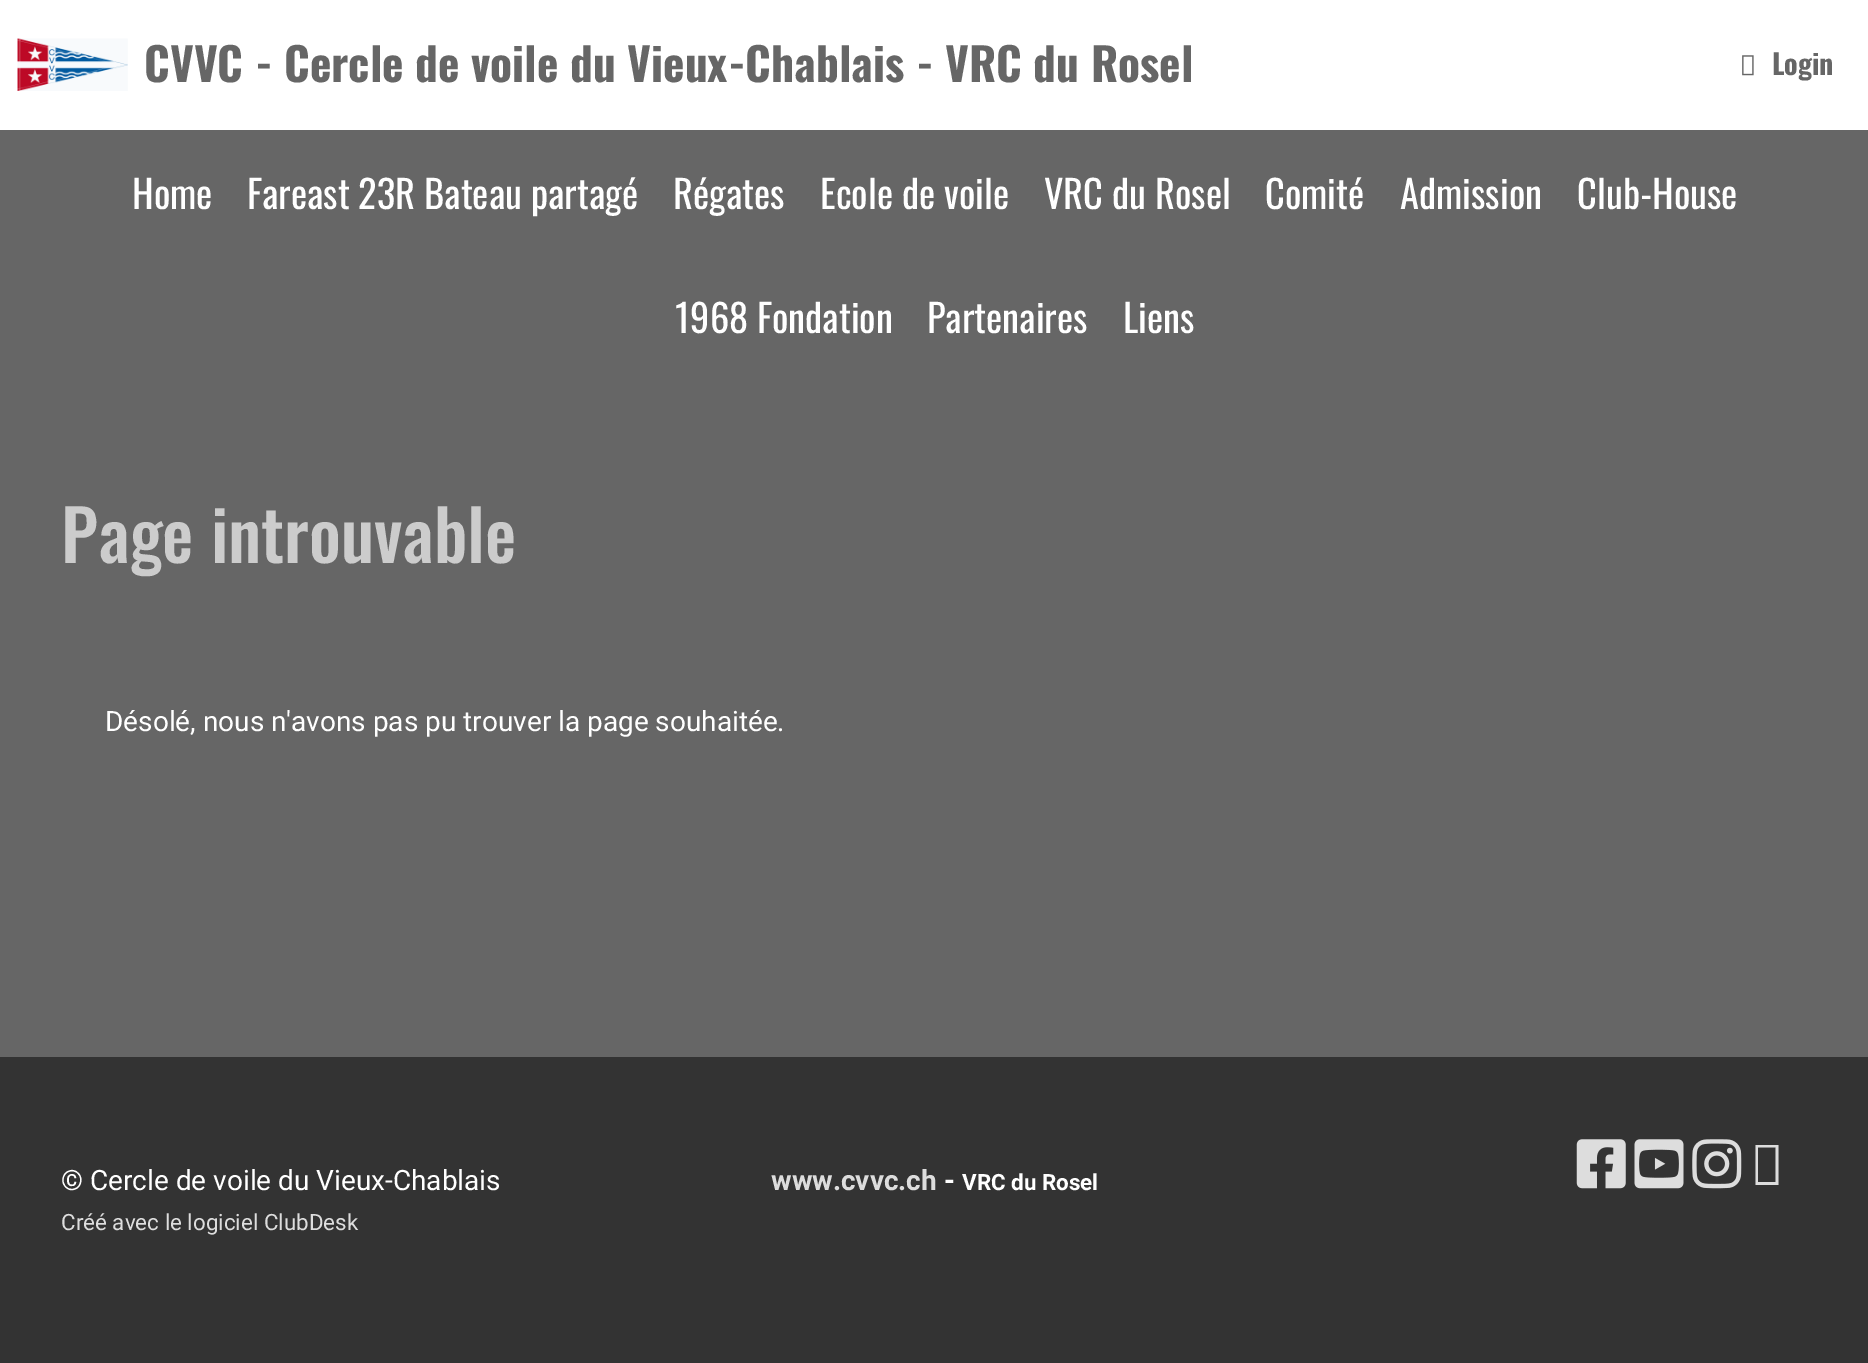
%!PS-Adobe-3.0
%%BoundingBox: 0 0 1868 1363
%%LanguageLevel: 3
%%Pages: 1
%%EndComments
%%BeginProlog
/drawimage { 5 dict begin { /h /w /y /x /name } { exch def } forall
  gsave x y translate w h scale
  w h 8 [w 0 0 h 0 0] name (r) file false 3 colorimage grestore end } def
%%EndProlog
%%BeginSetup
<< /PageSize [1868 1363] >> setpagedevice
%%EndSetup
%%Page: 1 1
0 1363 translate 1 -1 scale
4 setmiterlimit
1 setgray
0 0 1868 1363 rectfill
(images/1.raw) 17 38 111 53 drawimage
(images/2.raw) 1742 55 12 21 drawimage
0.4 setgray
0 130 1868 927 rectfill
0.2 setgray
0 1057 1868 306 rectfill
(images/3.raw) 1576 1139 50 50 drawimage
(images/4.raw) 1634 1139 50 50 drawimage
(images/5.raw) 1692 1139 50 50 drawimage
0.867 setgray
newpath 1755.5 1185 moveto 1755.5 1145 lineto 1778.5 1145 lineto 1778.5 1185 lineto closepath 1758 1182 moveto 1775.5 1182 lineto 1775.5 1147.5 lineto 1758 1147.5 lineto closepath fill
/Oswald-Bold [45.5 0 0 -45.5 0 0] selectfont
0.4 setgray
144 82 moveto (CVVC - Cercle de voile du Vieux-Chablais - VRC du Rosel) show
/Oswald-Bold [28 0 0 -28 0 0] selectfont
1772 75 moveto (Login) show
/Oswald-Regular [38.5 0 0 -38.5 0 0] selectfont
1 setgray
132 209 moveto (Home) show
247 209 moveto (Fareast 23R Bateau partagé) show
673 209 moveto (Régates) show
820 209 moveto (Ecole de voile) show
1044 209 moveto (VRC du Rosel) show
1265 209 moveto (Comité) show
1400 209 moveto (Admission) show
1577 209 moveto (Club-House) show
675 333 moveto (1968 Fondation) show
927 333 moveto (Partenaires) show
1123 333 moveto (Liens) show
/Oswald-Medium [70 0 0 -70 0 0] selectfont
0.8 setgray
61 563 moveto (Page introuvable) show
/Roboto-Regular [28 0 0 -28 0 0] selectfont
1 setgray
105 731 moveto (Désolé, nous n'avons pas pu trouver la page souhaitée.) show
61 1190 moveto (© Cercle de voile du Vieux-Chablais) show
/Roboto-Regular [22.4 0 0 -22.4 0 0] selectfont
0.867 setgray
61 1230 moveto (Créé avec le logiciel ClubDesk) show
/Roboto-Bold [28 0 0 -28 0 0] selectfont
771 1190 moveto (www.cvvc.ch) show
1 setgray
944 1190 moveto (-) show
/Roboto-Bold [22.4 0 0 -22.4 0 0] selectfont
962 1190 moveto (VRC du Rosel) show
showpage
%%EOF
